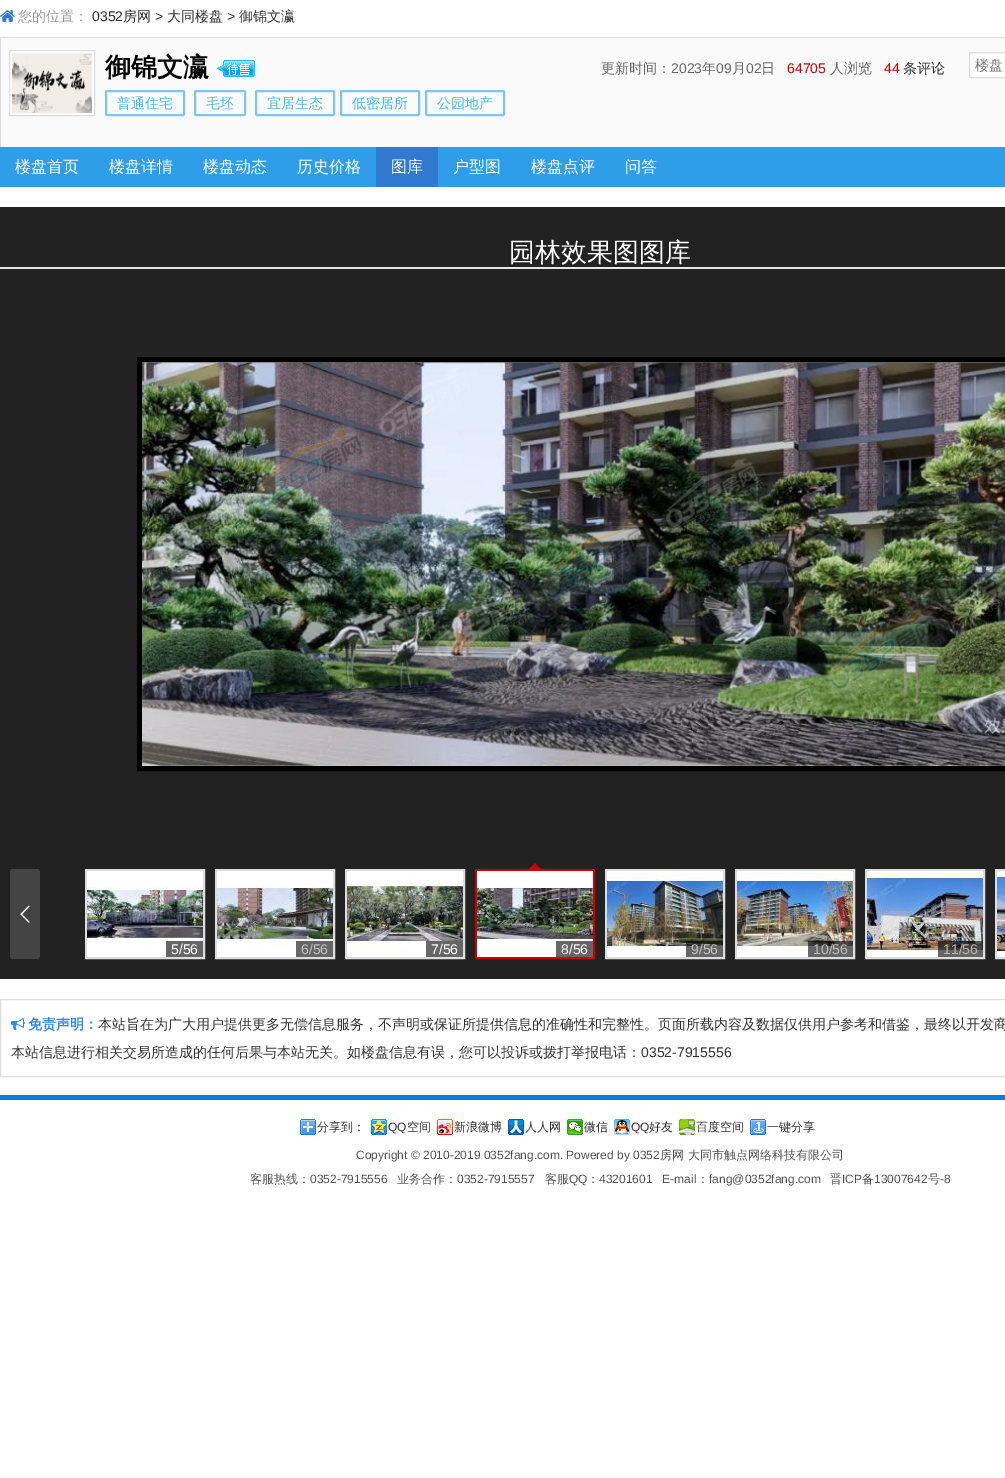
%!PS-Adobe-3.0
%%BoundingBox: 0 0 1005 1478
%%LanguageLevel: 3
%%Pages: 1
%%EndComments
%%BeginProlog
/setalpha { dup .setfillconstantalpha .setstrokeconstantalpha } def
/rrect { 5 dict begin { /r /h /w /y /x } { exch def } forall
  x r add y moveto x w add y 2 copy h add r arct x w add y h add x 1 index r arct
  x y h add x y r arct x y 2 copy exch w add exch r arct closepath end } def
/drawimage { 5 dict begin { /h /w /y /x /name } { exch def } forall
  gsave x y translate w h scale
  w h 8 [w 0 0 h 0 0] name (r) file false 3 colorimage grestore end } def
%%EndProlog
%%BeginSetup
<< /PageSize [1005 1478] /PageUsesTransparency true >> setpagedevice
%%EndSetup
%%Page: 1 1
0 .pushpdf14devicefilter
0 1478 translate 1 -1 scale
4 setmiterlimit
1 setgray
0 0 1005 1478 rectfill
(images/1.raw) 0 10 15 12 drawimage
0.98 setgray
1 38 1004 109 rectfill
0.867 setgray
0 37 1005 1 rectfill
0 37 1 110 rectfill
1 setgray
newpath 9.5 50.5 moveto 94.5 50.5 lineto 94.5 115.5 lineto 9.5 115.5 lineto closepath gsave fill grestore
0.867 setgray
stroke
(images/2.raw) 12 53 80 60 drawimage
(images/3.raw) 217 60 40 19 drawimage
0.49 0.78 0.933 setrgbcolor
2 setlinewidth
106 91 78 24 1 rrect stroke
195 91 50 24 1 rrect stroke
256 91 78 24 1 rrect stroke
341 91 78 24 1 rrect stroke
426 91 78 24 1 rrect stroke
1 setgray
newpath 969.5 52.5 moveto 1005.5 52.5 lineto 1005.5 77.5 lineto 969.5 77.5 lineto closepath gsave fill grestore
0.867 setgray
1 setlinewidth
stroke
0.18 0.62 0.91 setrgbcolor
0 147 1005 40 rectfill
0.196 0.478 0.812 setrgbcolor
376 147 62 40 rectfill
0.133 setgray
0 207 1005 772 rectfill
0.902 setgray
0 267 1005 2 rectfill
0 setgray
5 setlinewidth
139.5 359.5 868 409 rectstroke
(images/4.raw) 142 362 863 404 drawimage
0.267 setgray
10 869 30 90 3 rrect fill
(images/5.raw) 20 905 10 18 drawimage
0.867 setgray
2 setlinewidth
86 870 118 88 rectstroke
(images/6.raw) 87 871 116 86 drawimage
0.6 setalpha
0 setgray
166 941 37 16 rectfill
1 setalpha
0.867 setgray
216 870 118 88 rectstroke
(images/7.raw) 217 871 116 86 drawimage
0.6 setalpha
0 setgray
296 941 37 16 rectfill
1 setalpha
0.867 setgray
346 870 118 88 rectstroke
(images/8.raw) 347 871 116 86 drawimage
0.6 setalpha
0 setgray
426 941 37 16 rectfill
1 setalpha
0.8 0 0 setrgbcolor
476 870 118 88 rectstroke
newpath 541 869 moveto 529 869 lineto 535 863 lineto closepath fill
(images/9.raw) 477 871 116 86 drawimage
0.6 setalpha
0 setgray
556 941 37 16 rectfill
1 setalpha
0.867 setgray
606 870 118 88 rectstroke
(images/10.raw) 607 871 116 86 drawimage
0.6 setalpha
0 setgray
686 941 37 16 rectfill
1 setalpha
0.867 setgray
736 870 118 88 rectstroke
(images/11.raw) 737 871 116 86 drawimage
0.6 setalpha
0 setgray
808 941 45 16 rectfill
1 setalpha
0.867 setgray
866 870 118 88 rectstroke
(images/12.raw) 867 871 116 86 drawimage
0.6 setalpha
0 setgray
938 941 45 16 rectfill
1 setalpha
0.867 setgray
996 870 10 88 rectstroke
(images/13.raw) 997 871 8 86 drawimage
1 setlinewidth
0.5 999.5 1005 77 rectstroke
(images/14.raw) 11 1018 14 12 drawimage
0.055 0.49 0.855 setrgbcolor
0 1095 1005 5 rectfill
(images/15.raw) 300 1119 16 16 drawimage
(images/16.raw) 371 1119 16 16 drawimage
(images/17.raw) 437 1119 16 16 drawimage
(images/18.raw) 508 1119 16 16 drawimage
(images/19.raw) 567 1119 16 16 drawimage
(images/20.raw) 614 1119 16 16 drawimage
(images/21.raw) 679 1119 16 16 drawimage
(images/22.raw) 750 1119 16 16 drawimage
/WenQuanYiZenHei-Medium [14 0 0 -14 0 0] selectfont
0.6 setgray
18 21 moveto (您的位置：) show
/LiberationSans-Regular [14 0 0 -14 0 0] selectfont
0.173 setgray
92 21 moveto (0352) show
/WenQuanYiZenHei-Medium [14 0 0 -14 0 0] selectfont
123 21 moveto (房网) show
/LiberationSans-Regular [14 0 0 -14 0 0] selectfont
0.2 setgray
155 21 moveto (>) show
/WenQuanYiZenHei-Medium [14 0 0 -14 0 0] selectfont
0.173 setgray
167 21 moveto (大同楼盘) show
/LiberationSans-Regular [14 0 0 -14 0 0] selectfont
0.2 setgray
227 21 moveto (>) show
/WenQuanYiZenHei-Medium [14 0 0 -14 0 0] selectfont
239 21 moveto (御锦文瀛) show
/WenQuanYiZenHei-Bold [26 0 0 -26 0 0] selectfont
0 setgray
105 76 moveto (御锦文瀛) show
/WenQuanYiZenHei-Medium [14 0 0 -14 0 0] selectfont
0.4 setgray
601 73 moveto (更新时间：) show
/LiberationSans-Regular [14 0 0 -14 0 0] selectfont
671 73 moveto (2023) show
/WenQuanYiZenHei-Medium [14 0 0 -14 0 0] selectfont
702 73 moveto (年) show
/LiberationSans-Regular [14 0 0 -14 0 0] selectfont
716 73 moveto (09) show
/WenQuanYiZenHei-Medium [14 0 0 -14 0 0] selectfont
732 73 moveto (月) show
/LiberationSans-Regular [14 0 0 -14 0 0] selectfont
746 73 moveto (02) show
/WenQuanYiZenHei-Medium [14 0 0 -14 0 0] selectfont
761 73 moveto (日) show
/LiberationSans-Regular [14 0 0 -14 0 0] selectfont
0.8 0 0 setrgbcolor
787 73 moveto (64705) show
/WenQuanYiZenHei-Medium [14 0 0 -14 0 0] selectfont
0.4 setgray
830 73 moveto (人浏览) show
/LiberationSans-Regular [14 0 0 -14 0 0] selectfont
0.8 0 0 setrgbcolor
884 73 moveto (44) show
/WenQuanYiZenHei-Medium [14 0 0 -14 0 0] selectfont
0.173 setgray
903 73 moveto (条评论) show
0.275 0.725 0.902 setrgbcolor
117 108 moveto (普通住宅) show
206 108 moveto (毛坯) show
267 108 moveto (宜居生态) show
352 108 moveto (低密居所) show
437 108 moveto (公园地产) show
0.459 setgray
975 70 moveto (楼盘) show
/WenQuanYiZenHei-Medium [16 0 0 -16 0 0] selectfont
1 setgray
15 172 moveto (楼盘首页) show
109 172 moveto (楼盘详情) show
203 172 moveto (楼盘动态) show
297 172 moveto (历史价格) show
391 172 moveto (图库) show
453 172 moveto (户型图) show
531 172 moveto (楼盘点评) show
625 172 moveto (问答) show
/WenQuanYiZenHei-Medium [26 0 0 -26 0 0] selectfont
509 261 moveto (园林效果图图库) show
/LiberationSans-Regular [14 0 0 -14 0 0] selectfont
171 954 moveto (5/56) show
0.761 setgray
301 954 moveto (6/56) show
1 setgray
431 954 moveto (7/56) show
561 954 moveto (8/56) show
0.761 setgray
691 954 moveto (9/56) show
0.741 0.741 0.737 setrgbcolor
813 954 moveto (10/56) show
0.725 0.722 0.714 setrgbcolor
943 954 moveto (11/56) show
/WenQuanYiZenHei-Bold [14 0 0 -14 0 0] selectfont
0.188 0.533 0.875 setrgbcolor
28 1029 moveto (免责声明：) show
/WenQuanYiZenHei-Medium [14 0 0 -14 0 0] selectfont
0.2 setgray
98 1029 moveto (本站旨在为广大用户提供更多无偿信息服务，不声明或保证所提供信息的准确性和完整性。页面所载内容及数据仅供用户参考和借鉴，最终以开发商) show
11 1057 moveto (本站信息进行相关交易所造成的任何后果与本站无关。如楼盘信息有误，您可以投诉或拨打举报电话：) show
/LiberationSans-Regular [14 0 0 -14 0 0] selectfont
641 1057 moveto (0352-7915556) show
/WenQuanYiZenHei-Medium [12 0 0 -12 0 0] selectfont
317 1131 moveto (分享到：) show
/LiberationSans-Regular [12 0 0 -12 0 0] selectfont
0.173 setgray
388 1131 moveto (QQ) show
/WenQuanYiZenHei-Medium [12 0 0 -12 0 0] selectfont
407 1131 moveto (空间) show
454 1131 moveto (新浪微博) show
525 1131 moveto (人人网) show
584 1131 moveto (微信) show
/LiberationSans-Regular [12 0 0 -12 0 0] selectfont
631 1131 moveto (QQ) show
/WenQuanYiZenHei-Medium [12 0 0 -12 0 0] selectfont
649 1131 moveto (好友) show
696 1131 moveto (百度空间) show
767 1131 moveto (一键分享) show
/LiberationSans-Regular [12 0 0 -12 0 0] selectfont
0.318 setgray
356 1159 moveto (Copyright © 2010-2019 0352fang.com. Powered by 0352) show
/WenQuanYiZenHei-Medium [12 0 0 -12 0 0] selectfont
660 1159 moveto (房网 大同市触点网络科技有限公司) show
250 1183 moveto (客服热线：) show
/LiberationSans-Regular [12 0 0 -12 0 0] selectfont
310 1183 moveto (0352-7915556) show
/WenQuanYiZenHei-Medium [12 0 0 -12 0 0] selectfont
397 1183 moveto (业务合作：) show
/LiberationSans-Regular [12 0 0 -12 0 0] selectfont
457 1183 moveto (0352-7915557) show
/WenQuanYiZenHei-Medium [12 0 0 -12 0 0] selectfont
545 1183 moveto (客服) show
/LiberationSans-Regular [12 0 0 -12 0 0] selectfont
569 1183 moveto (QQ) show
/WenQuanYiZenHei-Medium [12 0 0 -12 0 0] selectfont
587 1183 moveto (：) show
/LiberationSans-Regular [12 0 0 -12 0 0] selectfont
599 1183 moveto (43201601   E-mail) show
/WenQuanYiZenHei-Medium [12 0 0 -12 0 0] selectfont
697 1183 moveto (：) show
/LiberationSans-Regular [12 0 0 -12 0 0] selectfont
709 1183 moveto (fang@0352fang.com) show
/WenQuanYiZenHei-Medium [12 0 0 -12 0 0] selectfont
830 1183 moveto (晋) show
/LiberationSans-Regular [12 0 0 -12 0 0] selectfont
842 1183 moveto (ICP) show
/WenQuanYiZenHei-Medium [12 0 0 -12 0 0] selectfont
862 1183 moveto (备) show
/LiberationSans-Regular [12 0 0 -12 0 0] selectfont
874 1183 moveto (13007642) show
/WenQuanYiZenHei-Medium [12 0 0 -12 0 0] selectfont
928 1183 moveto (号) show
/LiberationSans-Regular [12 0 0 -12 0 0] selectfont
940 1183 moveto (-8) show
.poppdf14devicefilter showpage
%%EOF
